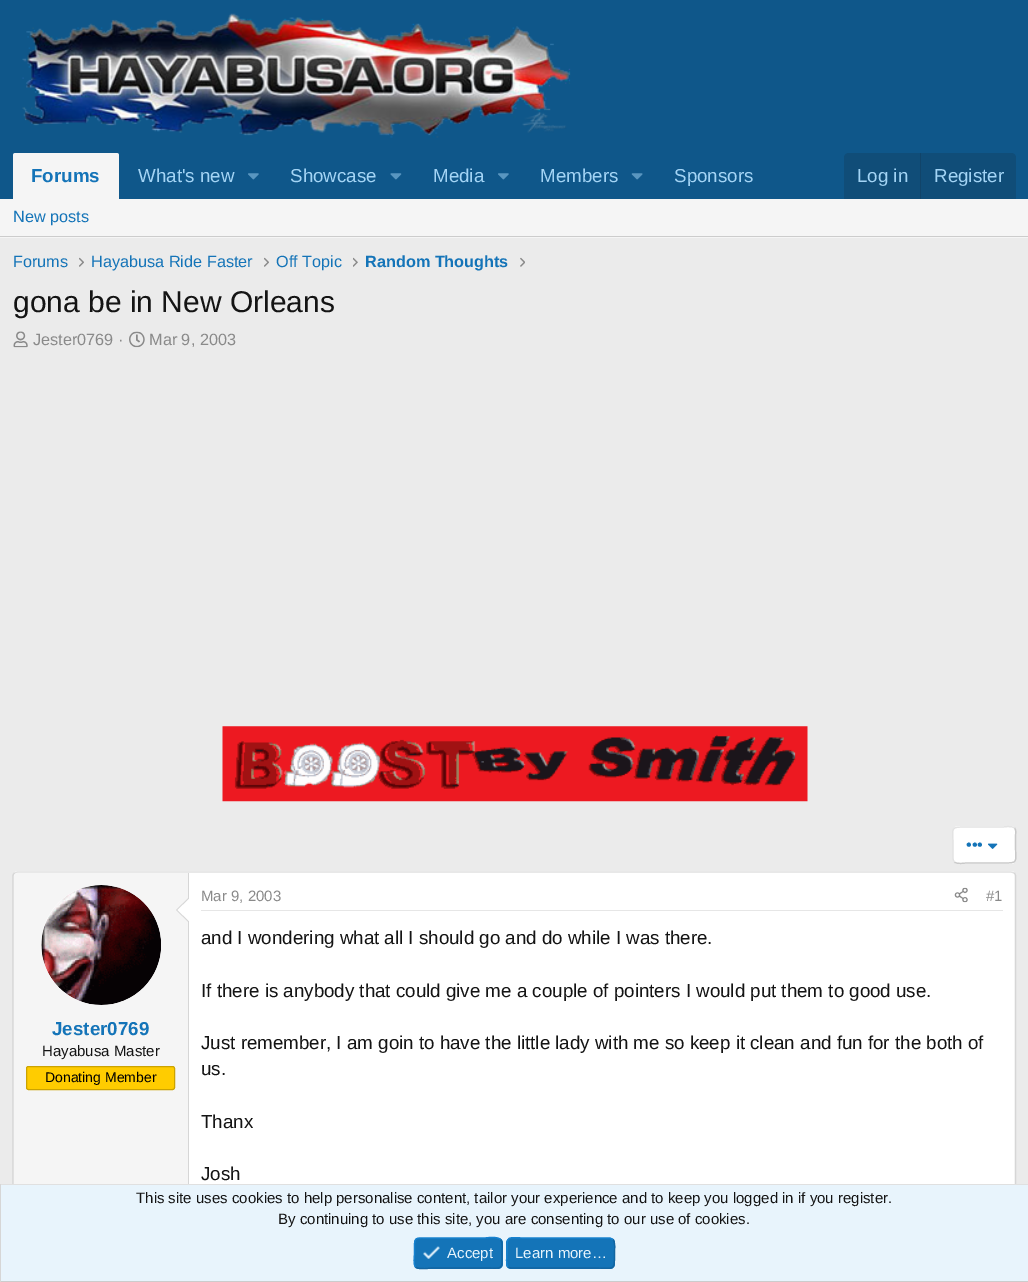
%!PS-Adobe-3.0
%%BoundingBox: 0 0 1028 1282
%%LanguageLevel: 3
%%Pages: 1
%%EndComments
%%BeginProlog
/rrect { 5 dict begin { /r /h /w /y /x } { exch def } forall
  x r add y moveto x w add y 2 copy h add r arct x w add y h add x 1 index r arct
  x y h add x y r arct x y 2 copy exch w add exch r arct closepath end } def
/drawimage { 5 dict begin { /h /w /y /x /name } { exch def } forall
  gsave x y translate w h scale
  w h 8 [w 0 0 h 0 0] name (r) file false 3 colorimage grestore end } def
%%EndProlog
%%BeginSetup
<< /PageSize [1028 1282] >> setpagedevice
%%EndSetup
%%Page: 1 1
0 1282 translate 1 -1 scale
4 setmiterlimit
0.922 setgray
0 0 1028 1282 rectfill
0.059 0.341 0.541 setrgbcolor
0 0 1028 199 rectfill
(images/1.raw) 22 13 549 125 drawimage
0.961 setgray
newpath 15.5 153 moveto 116.5 153 lineto 118 153 119 154 119 155.5 curveto 119 199 lineto 13 199 lineto 13 155.5 lineto 13 154 14 153 15.5 153 curveto closepath fill
(images/2.raw) 248 173 11 7 drawimage
(images/3.raw) 390 173 12 7 drawimage
(images/2.raw) 498 173 11 7 drawimage
(images/4.raw) 631 173 12 7 drawimage
0.063 0.302 0.471 setrgbcolor
newpath 849 153 moveto 1011 153 lineto 1014 153 1016 155 1016 158 curveto 1016 199 lineto 844 199 lineto 844 158 lineto 844 155 846 153 849 153 curveto closepath fill
0.067 0.267 0.412 setrgbcolor
920 153 1 46 rectfill
0.961 setgray
0 199 1028 39 rectfill
0.8 setgray
0 236 1028 1 rectfill
(images/5.raw) 79 257 5 10 drawimage
(images/5.raw) 264 257 5 10 drawimage
(images/6.raw) 353 257 5 10 drawimage
(images/7.raw) 520 257 5 10 drawimage
(images/8.raw) 13 331 15 17 drawimage
(images/9.raw) 129 331 16 17 drawimage
(images/10.raw) 222 726 586 76 drawimage
1 setgray
953 826 63 38 5 rrect fill
0.788 setgray
1.2 setlinewidth
newpath 1014.5 828 moveto 1016.5 830 1015.5 833.5 1015.5 836 curveto 1015.5 845 lineto 1015.5 863 1019 863 1002.5 863 curveto 966.5 863 lineto 964.5 863 957 864.5 954.5 862 curveto stroke
0.89 setgray
newpath 954.5 862 moveto 952.5 860 953 856.5 953 854 curveto 953 845 lineto 953 827 949.5 827 966.5 827 curveto 1002.5 827 lineto 1004 827 1011.5 825.5 1014.5 828 curveto stroke
(images/11.raw) 988 843 10 6 drawimage
1 setgray
13 871 1003 329 5 rrect fill
0.878 setgray
newpath 14.5 873 moveto 17.5 872 lineto 1011 872 lineto 1014.5 873 lineto stroke
0.839 setgray
newpath 1014.5 873 moveto 1015 874 1015.5 875 1015.5 876 curveto 1015.5 1195 lineto 1015.5 1196 1015 1197.5 1014.5 1198 curveto stroke
newpath 14.5 1198 moveto 13.5 1197.5 13 1196 13 1195 curveto 13 876 lineto 13 875 13.5 874 14.5 873 curveto stroke
0.961 setgray
newpath 18 873 moveto 189 873 lineto 189 1199 lineto 18 1199 lineto 16 1199 14 1197 14 1195 curveto 14 877 lineto 14 875 16 873 18 873 curveto closepath fill
0.839 setgray
188 873 1 311 rectfill
1 setgray
newpath 101 945 60 0 360 arc closepath fill
(images/12.raw) 41 885 120 120 drawimage
0.839 setgray
newpath 189 897.5 moveto 189 922.5 lineto 176 910 lineto closepath fill
1 setgray
newpath 189 899 moveto 189 921 lineto 177.5 910 lineto closepath fill
1 0.8 0 setrgbcolor
26.5 1066.5 148 23 2 rrect gsave fill grestore
0.8 0.639 0 setrgbcolor
1 setlinewidth
stroke
0.902 setgray
201 910 802 1 rectfill
(images/13.raw) 954 887 14 16 drawimage
0.91 0.957 0.988 setrgbcolor
1 1185 1027 96 rectfill
0.878 setgray
0 1184 1028 1 rectfill
0.8 setgray
0 1281 1028 1 rectfill
0.839 setgray
0 1184 1 98 rectfill
0.078 0.455 0.722 setrgbcolor
414 1238 89 31 5 rrect fill
0.071 0.396 0.631 setrgbcolor
1.2 setlinewidth
newpath 500.5 1239.5 moveto 503 1242 502 1250 502 1253 curveto 502 1271 503.5 1268 484.5 1268 curveto 432 1268 lineto 430.5 1268 419 1270 415.5 1267 curveto stroke
0.09 0.51 0.812 setrgbcolor
newpath 415.5 1267 moveto 413 1264 414.5 1256.5 414.5 1253 curveto 414.5 1235.5 413 1238 432 1238 curveto 484.5 1238 lineto 485.5 1238 497.5 1236 500.5 1239.5 curveto stroke
(images/14.raw) 423 1246 17 13 drawimage
0.078 0.455 0.722 setrgbcolor
506 1238 109 31 5 rrect fill
0.071 0.396 0.631 setrgbcolor
newpath 613 1239.5 moveto 615.5 1242 614.5 1250 614.5 1253 curveto 614.5 1272 615 1268 593.5 1268 curveto 511 1268 lineto 508 1267 lineto stroke
0.09 0.51 0.812 setrgbcolor
newpath 508 1267 moveto 505.5 1264 507 1256.5 507 1253 curveto 507 1234 506 1238 527.5 1238 curveto 610 1238 lineto 613 1239.5 lineto stroke
/LiberationSans-Bold [18.75 0 0 -18.75 0 0] selectfont
0.078 0.455 0.722 setrgbcolor
31 182 moveto (Forums) show
/LiberationSans-Regular [18.75 0 0 -18.75 0 0] selectfont
0.639 0.831 0.961 setrgbcolor
138 182 moveto (What's new) show
290 182 moveto (Showcase) show
433 182 moveto (Media) show
540 182 moveto (Members) show
674 182 moveto (Sponsors) show
857 182 moveto (Log in) show
934 182 moveto (Register) show
/LiberationSans-Regular [16.25 0 0 -16.25 0 0] selectfont
0.078 0.455 0.722 setrgbcolor
13 222 moveto (New posts) show
13 267 moveto (Forums) show
91 267 moveto (Hayabusa Ride Faster) show
276 267 moveto (Off Topic) show
/LiberationSans-Bold [16.25 0 0 -16.25 0 0] selectfont
365 267 moveto (Random Thoughts) show
/LiberationSans-Regular [30 0 0 -30 0 0] selectfont
0.078 setgray
13 312 moveto (gona be in New Orleans) show
/LiberationSans-Regular [16.25 0 0 -16.25 0 0] selectfont
0.541 setgray
33 345 moveto (Jester0769 ·) show
149 345 moveto (Mar 9, 2003) show
0.078 0.455 0.722 setrgbcolor
966 850 moveto (•••) show
/LiberationSans-Bold [18.75 0 0 -18.75 0 0] selectfont
52 1035 moveto (Jester0769) show
/LiberationSans-Regular [15 0 0 -15 0 0] selectfont
0.078 setgray
42 1056 moveto (Hayabusa Master) show
/LiberationSans-Regular [14 0 0 -14 0 0] selectfont
0 setgray
45 1082 moveto (Donating Member) show
/LiberationSans-Regular [15 0 0 -15 0 0] selectfont
0.541 setgray
201 901 moveto (Mar 9, 2003) show
986 901 moveto (#1) show
/LiberationSans-Regular [18.75 0 0 -18.75 0 0] selectfont
0.078 setgray
201 944 moveto (and I wondering what all I should go and do while I was there.) show
201 997 moveto (If there is anybody that could give me a couple of pointers I would put them to good use.) show
201 1049 moveto (Just remember, I am goin to have the little lady with me so keep it clean and fun for the both of) show
201 1075 moveto (us.) show
201 1128 moveto (Thanx) show
201 1180 moveto (Josh) show
/LiberationSans-Regular [15 0 0 -15 0 0] selectfont
136 1203 moveto (This site uses cookies to help personalise content, tailor your experience and to keep you logged in if you register.) show
278 1224 moveto (By continuing to use this site, you are consenting to our use of cookies.) show
0.91 0.957 0.988 setrgbcolor
447 1258 moveto (Accept) show
515 1258 moveto (Learn more…) show
showpage
%%EOF
